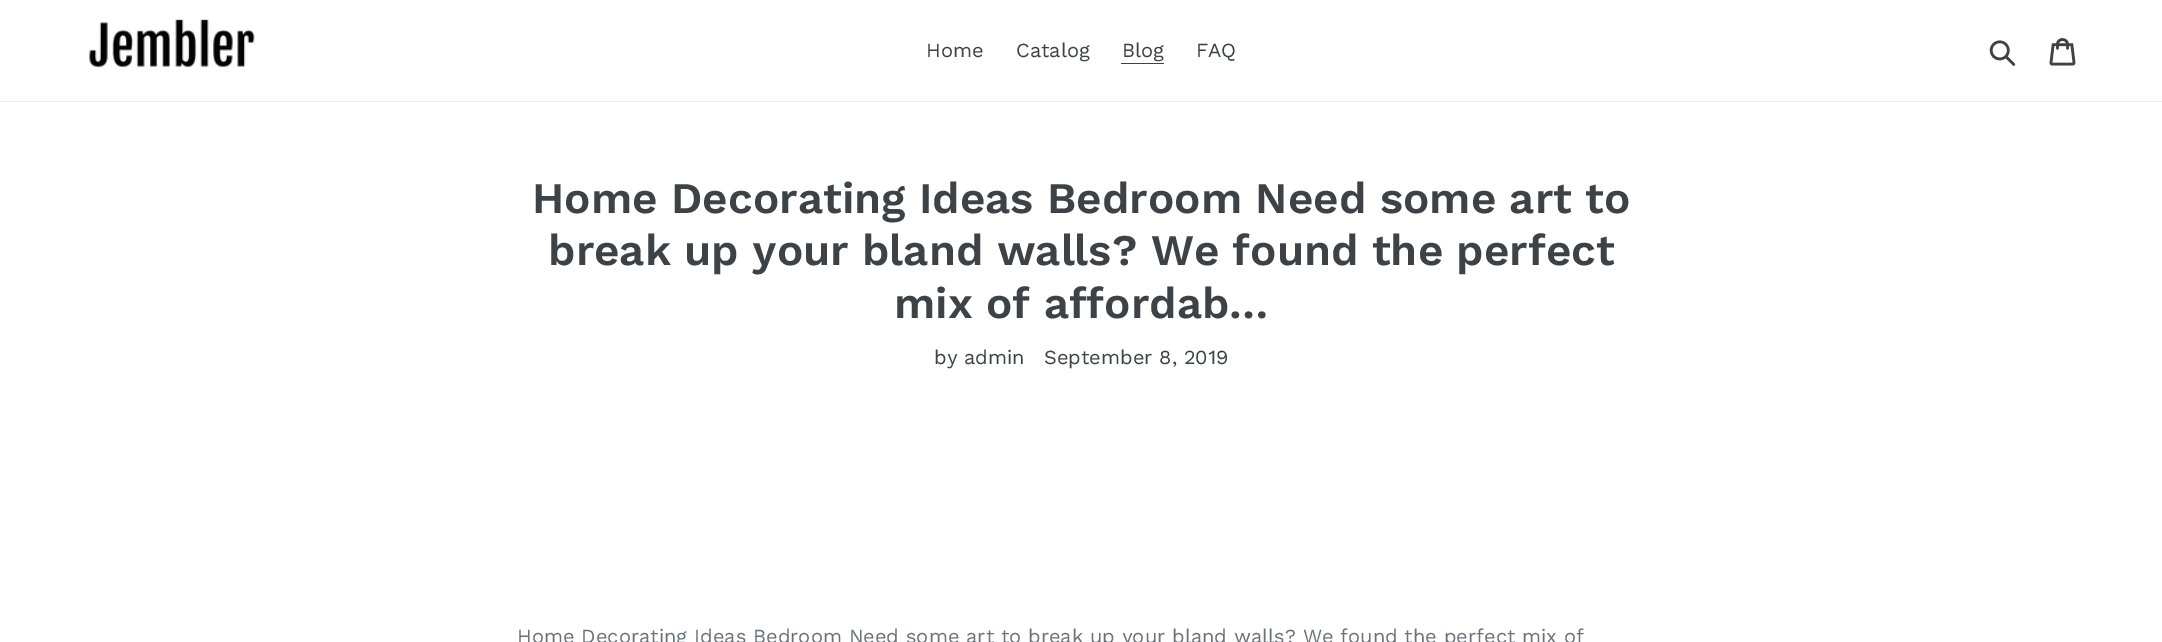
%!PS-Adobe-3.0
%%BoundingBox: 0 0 2162 642
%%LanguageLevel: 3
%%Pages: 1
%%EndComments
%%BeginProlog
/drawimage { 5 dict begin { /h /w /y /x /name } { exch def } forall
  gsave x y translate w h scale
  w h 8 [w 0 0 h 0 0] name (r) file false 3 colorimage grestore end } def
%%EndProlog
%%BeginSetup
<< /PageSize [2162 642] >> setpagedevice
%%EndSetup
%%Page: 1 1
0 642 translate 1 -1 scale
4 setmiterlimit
1 setgray
0 0 2162 642 rectfill
0.91 0.914 0.922 setrgbcolor
0 101 2162 1 rectfill
(images/1.raw) 89 19 166 49 drawimage
0.239 0.259 0.275 setrgbcolor
1121 63 43 1 rectfill
(images/2.raw) 1989 40 27 26 drawimage
(images/3.raw) 2049 38 27 28 drawimage
/WorkSans-Regular [20 0 0 -20 0 0] selectfont
926 57 moveto (Home) show
1016 57 moveto (Catalog) show
1122 57 moveto (Blog) show
1196 57 moveto (FAQ) show
/WorkSans-SemiBold [43.75 0 0 -43.75 0 0] selectfont
532 213 moveto (Home Decorating Ideas Bedroom Need some art to) show
548 265 moveto (break up your bland walls? We found the perfect) show
894 318 moveto (mix of affordab…) show
/WorkSans-Regular [20 0 0 -20 0 0] selectfont
934 364 moveto (by admin) show
1044 364 moveto (September 8, 2019) show
0.412 0.447 0.482 setrgbcolor
517 643 moveto (Home Decorating Ideas Bedroom Need some art to break up your bland walls? We found the perfect mix of) show
showpage
%%EOF
